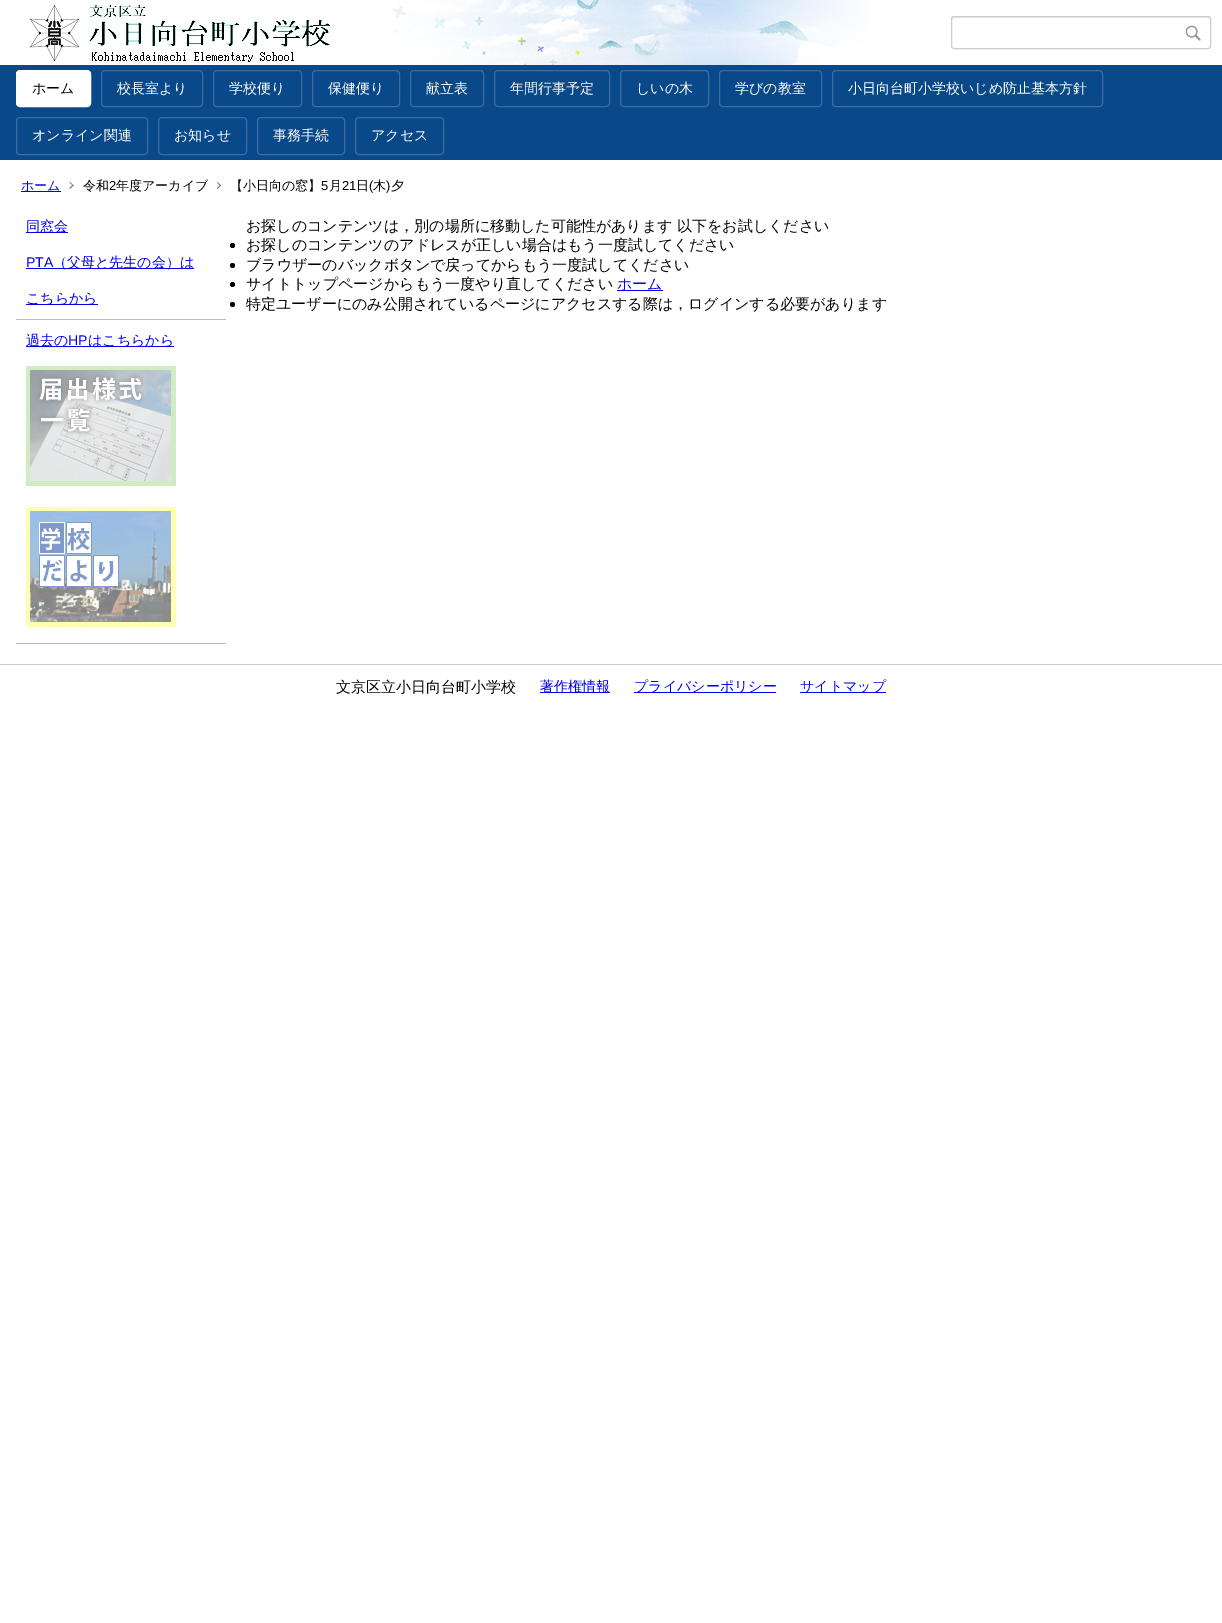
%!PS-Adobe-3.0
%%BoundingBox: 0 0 1222 1623
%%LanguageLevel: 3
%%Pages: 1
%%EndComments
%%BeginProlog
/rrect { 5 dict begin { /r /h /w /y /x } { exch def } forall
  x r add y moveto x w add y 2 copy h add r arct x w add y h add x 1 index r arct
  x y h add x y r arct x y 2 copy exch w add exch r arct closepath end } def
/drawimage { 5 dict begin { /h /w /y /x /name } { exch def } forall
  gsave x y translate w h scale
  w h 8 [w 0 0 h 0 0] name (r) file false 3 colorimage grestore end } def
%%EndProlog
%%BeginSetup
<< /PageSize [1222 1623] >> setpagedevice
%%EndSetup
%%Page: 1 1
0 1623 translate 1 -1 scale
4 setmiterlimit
1 setgray
0 0 1222 1623 rectfill
(images/1.raw) 392 0 479 65 drawimage
(images/2.raw) 30 5 300 57 drawimage
0.925 setgray
newpath 954 18 moveto 1208 18 lineto 1209 18 1210 19 1210 20 curveto 1209 17 lineto 954 17 lineto 952 17 952 19 952 20 curveto 952 19 953 18 954 18 curveto closepath fill
0.8 setgray
951.5 16.5 259 32 2.5 rrect stroke
(images/3.raw) 1185 25 16 16 drawimage
0.039 0.286 0.537 setrgbcolor
0 65 1222 95 rectfill
1 setgray
16.5 70.5 74 36 3.5 rrect gsave fill grestore
stroke
0.231 0.427 0.631 setrgbcolor
101.5 70.5 101 36 3.5 rrect stroke
213.5 70.5 88 36 3.5 rrect stroke
312.5 70.5 87 36 3.5 rrect stroke
410.5 70.5 73 36 3.5 rrect stroke
494.5 70.5 115 36 3.5 rrect stroke
620.5 70.5 88 36 3.5 rrect stroke
719.5 70.5 102 36 3.5 rrect stroke
832.5 70.5 270 36 3.5 rrect stroke
16.5 117.5 131 37 3.5 rrect stroke
158.5 117.5 88 37 3.5 rrect stroke
257.5 117.5 87 37 3.5 rrect stroke
355.5 117.5 88 37 3.5 rrect stroke
0 0 0.933 setrgbcolor
21 191 40 1 rectfill
0.467 setgray
newpath 70 182 moveto 73.5 185.5 lineto 73 186 lineto 69.5 182.5 lineto closepath fill
newpath 73 184.5 moveto 73.5 185.5 lineto 70 189 lineto 69.5 188 lineto closepath fill
newpath 217.5 182 moveto 221 185.5 lineto 220.5 186 lineto 217 182.5 lineto closepath fill
newpath 220.5 184.5 moveto 221 185.5 lineto 217.5 189 lineto 217 188 lineto closepath fill
0 0 0.933 setrgbcolor
26 232 42 1 rectfill
26 268 168 1 rectfill
26 304 72 1 rectfill
0.733 setgray
16 319 210 1 rectfill
0 0 0.933 setrgbcolor
26 346 148 1 rectfill
(images/4.raw) 26 366 150 120 drawimage
(images/5.raw) 26 507 150 120 drawimage
0.733 setgray
16 643 210 1 rectfill
0 setgray
newpath 232.5 245.5 2.5 0 360 arc closepath fill
newpath 232.5 265.5 2.5 0 360 arc closepath fill
newpath 232.5 284.5 2.5 0 360 arc closepath fill
0 0 0.933 setrgbcolor
617 290 46 1 rectfill
0 setgray
newpath 232.5 304.5 2.5 0 360 arc closepath fill
0.8 setgray
0 664 1222 1 rectfill
0 0 0.933 setrgbcolor
540 692 70 1 rectfill
634 692 142 1 rectfill
800 692 86 1 rectfill
/WenQuanYiZenHei-Medium [14 0 0 -14 0 0] selectfont
0 setgray
32 93 moveto (ホーム) show
1 setgray
117 93 moveto (校長室より) show
229 93 moveto (学校便り) show
328 93 moveto (保健便り) show
426 93 moveto (献立表) show
510 93 moveto (年間行事予定) show
636 93 moveto (しいの木) show
735 93 moveto (学びの教室) show
848 93 moveto (小日向台町小学校いじめ防止基本方針) show
32 140 moveto (オンライン関連) show
174 140 moveto (お知らせ) show
273 140 moveto (事務手続) show
371 140 moveto (アクセス) show
/WenQuanYiZenHei-Medium [13 0 0 -13 0 0] selectfont
0 0 0.933 setrgbcolor
21 190 moveto (ホーム) show
0 setgray
83 190 moveto (令和) show
/LiberationSans-Regular [13 0 0 -13 0 0] selectfont
109 190 moveto (2) show
/WenQuanYiZenHei-Medium [13 0 0 -13 0 0] selectfont
116 190 moveto (年度アーカイブ) show
230 190 moveto (【小日向の窓】) show
/LiberationSans-Regular [13 0 0 -13 0 0] selectfont
321 190 moveto (5) show
/WenQuanYiZenHei-Medium [13 0 0 -13 0 0] selectfont
329 190 moveto (月) show
/LiberationSans-Regular [13 0 0 -13 0 0] selectfont
342 190 moveto (21) show
/WenQuanYiZenHei-Medium [13 0 0 -13 0 0] selectfont
356 190 moveto (日) show
/LiberationSans-Regular [13 0 0 -13 0 0] selectfont
369 190 moveto (\() show
/WenQuanYiZenHei-Medium [13 0 0 -13 0 0] selectfont
373 190 moveto (木) show
/LiberationSans-Regular [13 0 0 -13 0 0] selectfont
386 190 moveto (\)) show
/WenQuanYiZenHei-Medium [13 0 0 -13 0 0] selectfont
391 190 moveto (夕) show
/WenQuanYiZenHei-Medium [14 0 0 -14 0 0] selectfont
0 0 0.933 setrgbcolor
26 231 moveto (同窓会) show
/LiberationSans-Regular [14 0 0 -14 0 0] selectfont
26 267 moveto (PTA) show
/WenQuanYiZenHei-Medium [14 0 0 -14 0 0] selectfont
53 267 moveto (（父母と先生の会）は) show
26 303 moveto (こちらから) show
26 345 moveto (過去の) show
/LiberationSans-Regular [14 0 0 -14 0 0] selectfont
68 345 moveto (HP) show
/WenQuanYiZenHei-Medium [14 0 0 -14 0 0] selectfont
88 345 moveto (はこちらから) show
/WenQuanYiZenHei-Medium [15 0 0 -15 0 0] selectfont
0 setgray
246 231 moveto (お探しのコンテンツは，別の場所に移動した可能性があります 以下をお試しください) show
246 250 moveto (お探しのコンテンツのアドレスが正しい場合はもう一度試してください) show
246 270 moveto (ブラウザーのバックボタンで戻ってからもう一度試してください) show
246 289 moveto (サイトトップページからもう一度やり直してください) show
0 0 0.933 setrgbcolor
617 289 moveto (ホーム) show
0 setgray
246 309 moveto (特定ユーザーにのみ公開されているページにアクセスする際は，ログインする必要があります) show
336 692 moveto (文京区立小日向台町小学校) show
/WenQuanYiZenHei-Medium [14 0 0 -14 0 0] selectfont
0 0 0.933 setrgbcolor
540 691 moveto (著作権情報) show
634 691 moveto (プライバシーポリシー) show
800 691 moveto (サイトマップ) show
showpage
%%EOF
